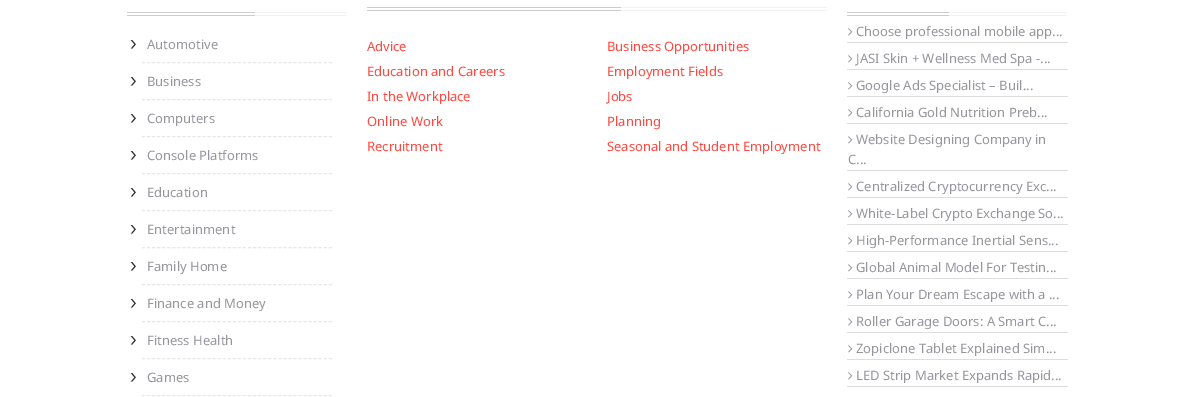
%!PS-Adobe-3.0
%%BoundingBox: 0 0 1194 397
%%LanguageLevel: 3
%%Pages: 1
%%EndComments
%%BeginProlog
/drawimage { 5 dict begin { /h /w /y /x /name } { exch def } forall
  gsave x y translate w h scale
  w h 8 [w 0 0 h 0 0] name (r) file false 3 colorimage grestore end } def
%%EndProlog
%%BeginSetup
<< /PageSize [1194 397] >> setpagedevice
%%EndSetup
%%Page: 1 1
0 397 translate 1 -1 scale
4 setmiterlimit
1 setgray
0 0 1194 397 rectfill
0.949 setgray
255 12 92 1 rectfill
255 15 92 1 rectfill
0.8 setgray
127 12 128 1 rectfill
127 15 128 1 rectfill
0.906 setgray
[3 2.05] 0 setdash
newpath 142 62.5 moveto 332 62.5 lineto stroke
(images/1.raw) 130 40 6 9 drawimage
newpath 142 99.5 moveto 332 99.5 lineto stroke
(images/1.raw) 130 77 6 9 drawimage
newpath 142 136.5 moveto 332 136.5 lineto stroke
(images/1.raw) 130 114 6 9 drawimage
newpath 142 173.5 moveto 332 173.5 lineto stroke
(images/1.raw) 130 151 6 9 drawimage
newpath 142 210.5 moveto 332 210.5 lineto stroke
(images/1.raw) 130 188 6 9 drawimage
newpath 142 247.5 moveto 332 247.5 lineto stroke
(images/1.raw) 130 225 6 9 drawimage
newpath 142 284.5 moveto 332 284.5 lineto stroke
(images/1.raw) 130 262 6 9 drawimage
newpath 142 321.5 moveto 332 321.5 lineto stroke
(images/1.raw) 130 299 6 9 drawimage
newpath 142 358.5 moveto 332 358.5 lineto stroke
(images/1.raw) 130 336 6 9 drawimage
newpath 142 395.5 moveto 332 395.5 lineto stroke
(images/1.raw) 130 373 6 9 drawimage
0.949 setgray
621 7 206 1 rectfill
621 10 206 1 rectfill
0.8 setgray
367 7 254 1 rectfill
367 10 254 1 rectfill
0.949 setgray
949 12 118 1 rectfill
949 15 118 1 rectfill
0.8 setgray
847 12 102 1 rectfill
847 15 102 1 rectfill
0.867 setgray
847 42 221 1 rectfill
(images/2.raw) 848 28 5 8 drawimage
847 69 221 1 rectfill
(images/2.raw) 848 55 5 8 drawimage
847 96 221 1 rectfill
(images/2.raw) 848 82 5 8 drawimage
847 123 221 1 rectfill
(images/2.raw) 848 109 5 8 drawimage
847 170 221 1 rectfill
(images/2.raw) 848 136 5 8 drawimage
847 197 221 1 rectfill
(images/2.raw) 848 183 5 8 drawimage
847 224 221 1 rectfill
(images/2.raw) 848 210 5 8 drawimage
847 251 221 1 rectfill
(images/2.raw) 848 237 5 8 drawimage
847 278 221 1 rectfill
(images/2.raw) 848 264 5 8 drawimage
847 305 221 1 rectfill
(images/2.raw) 848 291 5 8 drawimage
847 332 221 1 rectfill
(images/2.raw) 848 318 5 8 drawimage
847 359 221 1 rectfill
(images/2.raw) 848 345 5 8 drawimage
847 386 221 1 rectfill
(images/2.raw) 848 372 5 8 drawimage
/NotoSans-Regular [13 0 0 -13 0 0] selectfont
0.588 0.592 0.616 setrgbcolor
147 49 moveto (Automotive) show
147 86 moveto (Business) show
147 123 moveto (Computers) show
147 160 moveto (Console Platforms) show
147 197 moveto (Education) show
147 234 moveto (Entertainment) show
147 271 moveto (Family Home) show
147 308 moveto (Finance and Money) show
147 345 moveto (Fitness Health) show
147 382 moveto (Games) show
1 0.282 0.247 setrgbcolor
367 51 moveto (Advice) show
607 51 moveto (Business Opportunities) show
367 76 moveto (Education and Careers) show
607 76 moveto (Employment Fields) show
367 101 moveto (In the Workplace) show
607 101 moveto (Jobs) show
367 126 moveto (Online Work) show
607 126 moveto (Planning) show
367 151 moveto (Recruitment) show
607 151 moveto (Seasonal and Student Employment) show
0.588 0.592 0.616 setrgbcolor
856 36 moveto (Choose professional mobile app...) show
856 63 moveto (JASI Skin + Wellness Med Spa -...) show
856 90 moveto (Google Ads Specialist – Buil...) show
856 117 moveto (California Gold Nutrition Preb...) show
856 144 moveto (Website Designing Company in) show
848 164 moveto (C...) show
856 191 moveto (Centralized Cryptocurrency Exc...) show
856 218 moveto (White-Label Crypto Exchange So...) show
856 245 moveto (High-Performance Inertial Sens...) show
856 272 moveto (Global Animal Model For Testin...) show
856 299 moveto (Plan Your Dream Escape with a ...) show
856 326 moveto (Roller Garage Doors: A Smart C...) show
856 353 moveto (Zopiclone Tablet Explained Sim...) show
856 380 moveto (LED Strip Market Expands Rapid...) show
showpage
%%EOF
